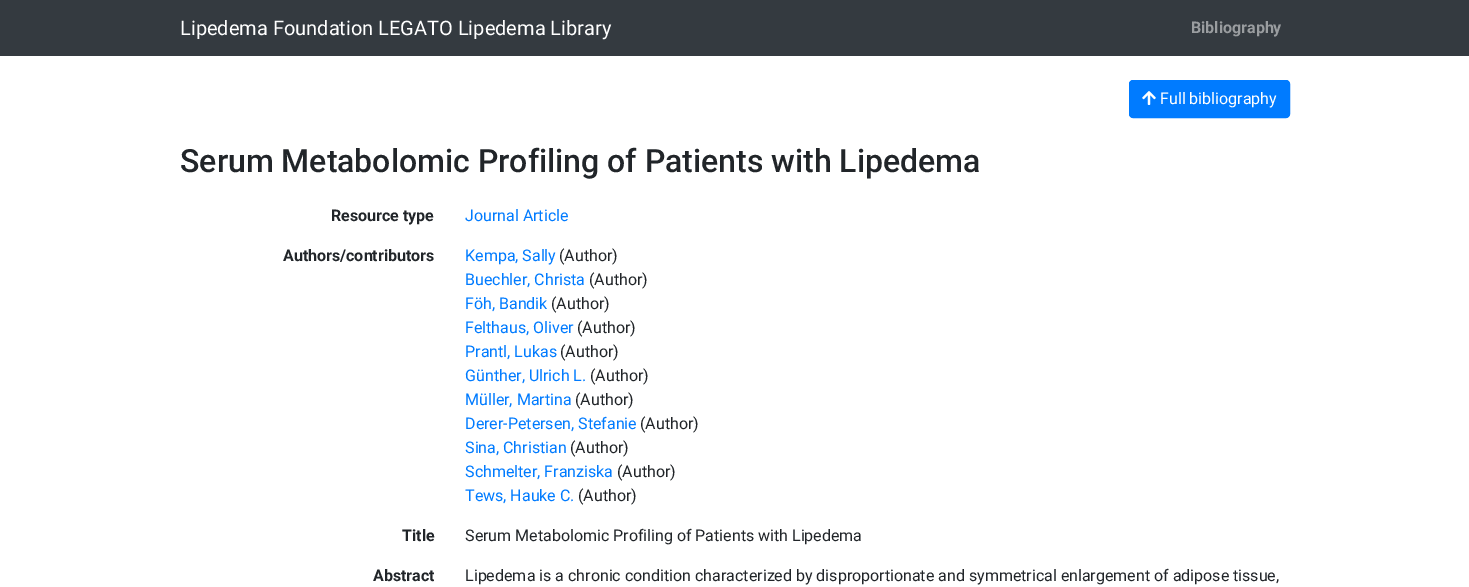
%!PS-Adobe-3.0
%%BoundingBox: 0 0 1469 587
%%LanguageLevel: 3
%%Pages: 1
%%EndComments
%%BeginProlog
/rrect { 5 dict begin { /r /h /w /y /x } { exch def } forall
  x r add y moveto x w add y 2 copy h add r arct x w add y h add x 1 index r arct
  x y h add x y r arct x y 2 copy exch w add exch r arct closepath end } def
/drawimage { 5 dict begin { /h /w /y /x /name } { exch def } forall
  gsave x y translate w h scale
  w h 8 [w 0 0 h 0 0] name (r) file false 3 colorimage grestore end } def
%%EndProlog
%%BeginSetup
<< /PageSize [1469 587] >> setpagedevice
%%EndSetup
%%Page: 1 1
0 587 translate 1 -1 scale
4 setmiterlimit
1 setgray
0 0 1469 587 rectfill
0.204 0.227 0.251 setrgbcolor
0 0 1469 56 rectfill
0 0.482 1 setrgbcolor
1129.5 80.5 160 37 3.5 rrect gsave fill grestore
stroke
(images/1.raw) 1142 91 14 14 drawimage
/Roboto-Regular [20 0 0 -20 0 0] selectfont
1 setgray
180 35 moveto (Lipedema Foundation LEGATO Lipedema Library) show
/Roboto-Bold [16 0 0 -16 0 0] selectfont
0.604 0.616 0.627 setrgbcolor
1191 33 moveto (Bibliography) show
/Roboto-Regular [16 0 0 -16 0 0] selectfont
1 setgray
1160 104 moveto (Full bibliography) show
/Roboto-Medium [32 0 0 -32 0 0] selectfont
0.129 0.145 0.161 setrgbcolor
180 172 moveto (Serum Metabolomic Profiling of Patients with Lipedema) show
/Roboto-Bold [16 0 0 -16 0 0] selectfont
331 221 moveto (Resource type) show
/Roboto-Regular [16 0 0 -16 0 0] selectfont
0 0.482 1 setrgbcolor
465 221 moveto (Journal Article) show
/Roboto-Bold [16 0 0 -16 0 0] selectfont
0.129 0.145 0.161 setrgbcolor
283 261 moveto (Authors/contributors) show
/Roboto-Regular [16 0 0 -16 0 0] selectfont
0 0.482 1 setrgbcolor
465 261 moveto (Kempa, Sally) show
0.129 0.145 0.161 setrgbcolor
559 261 moveto (\(Author\)) show
0 0.482 1 setrgbcolor
465 285 moveto (Buechler, Christa) show
0.129 0.145 0.161 setrgbcolor
589 285 moveto (\(Author\)) show
0 0.482 1 setrgbcolor
465 309 moveto (Föh, Bandik) show
0.129 0.145 0.161 setrgbcolor
551 309 moveto (\(Author\)) show
0 0.482 1 setrgbcolor
465 333 moveto (Felthaus, Oliver) show
0.129 0.145 0.161 setrgbcolor
577 333 moveto (\(Author\)) show
0 0.482 1 setrgbcolor
465 357 moveto (Prantl, Lukas) show
0.129 0.145 0.161 setrgbcolor
560 357 moveto (\(Author\)) show
0 0.482 1 setrgbcolor
465 381 moveto (Günther, Ulrich L.) show
0.129 0.145 0.161 setrgbcolor
590 381 moveto (\(Author\)) show
0 0.482 1 setrgbcolor
465 405 moveto (Müller, Martina) show
0.129 0.145 0.161 setrgbcolor
575 405 moveto (\(Author\)) show
0 0.482 1 setrgbcolor
465 429 moveto (Derer-Petersen, Stefanie) show
0.129 0.145 0.161 setrgbcolor
640 429 moveto (\(Author\)) show
0 0.482 1 setrgbcolor
465 453 moveto (Sina, Christian) show
0.129 0.145 0.161 setrgbcolor
570 453 moveto (\(Author\)) show
0 0.482 1 setrgbcolor
465 477 moveto (Schmelter, Franziska) show
0.129 0.145 0.161 setrgbcolor
617 477 moveto (\(Author\)) show
0 0.482 1 setrgbcolor
465 501 moveto (Tews, Hauke C.) show
0.129 0.145 0.161 setrgbcolor
578 501 moveto (\(Author\)) show
/Roboto-Bold [16 0 0 -16 0 0] selectfont
402 541 moveto (Title) show
/Roboto-Regular [16 0 0 -16 0 0] selectfont
465 541 moveto (Serum Metabolomic Profiling of Patients with Lipedema) show
/Roboto-Bold [16 0 0 -16 0 0] selectfont
373 581 moveto (Abstract) show
/Roboto-Regular [16 0 0 -16 0 0] selectfont
465 581 moveto (Lipedema is a chronic condition characterized by disproportionate and symmetrical enlargement of adipose tissue,) show
showpage
%%EOF
